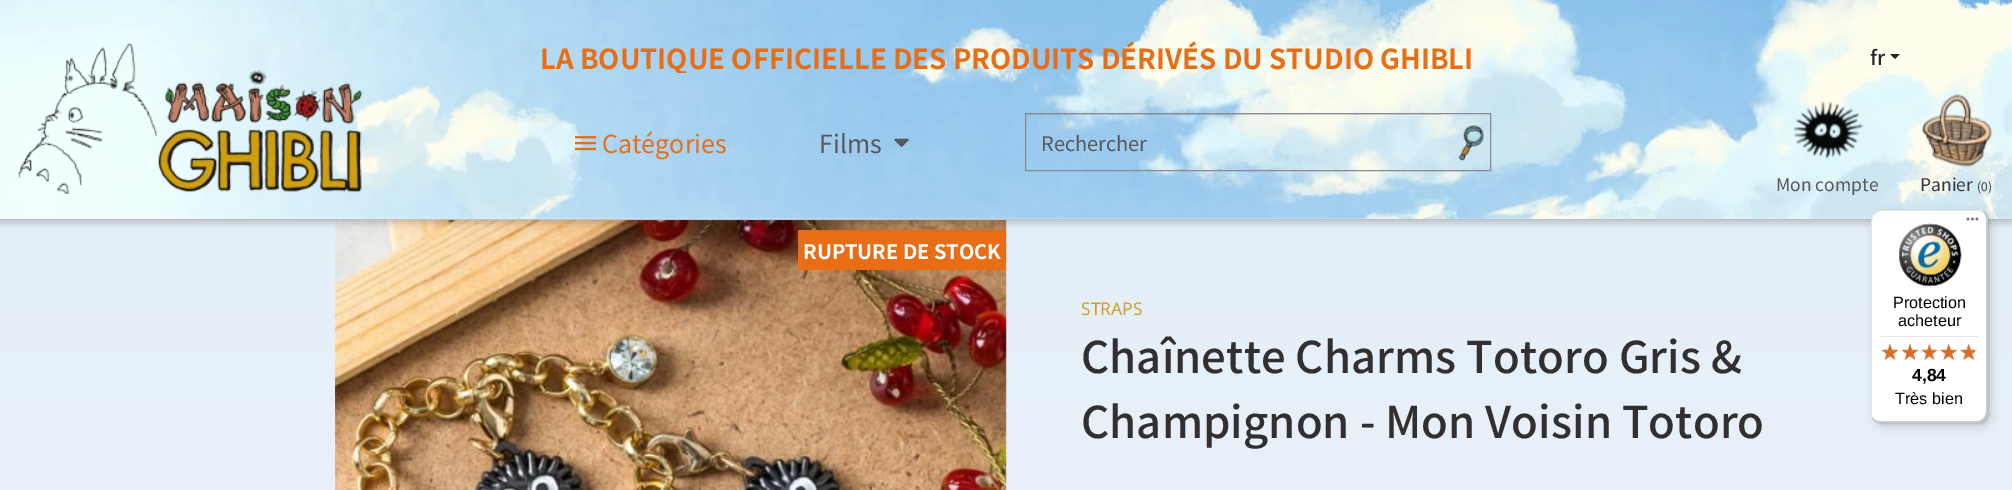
%!PS-Adobe-3.0
%%BoundingBox: 0 0 2012 490
%%LanguageLevel: 3
%%Pages: 1
%%EndComments
%%BeginProlog
/setalpha { dup .setfillconstantalpha .setstrokeconstantalpha } def
/rrect { 5 dict begin { /r /h /w /y /x } { exch def } forall
  x r add y moveto x w add y 2 copy h add r arct x w add y h add x 1 index r arct
  x y h add x y r arct x y 2 copy exch w add exch r arct closepath end } def
/softshadow { 12 dict begin { /a /b /q /h /w /y /x } { exch def } forall gsave /was 0 def
  9 -2 -9 { dup b mul 4 div /e exch def 1 sub .425 mul 2.718 exch exp 1 add a .99 .min exch div /now exch def
    1 1 now sub 1 was sub div sub setalpha /was now def
    w h .min e 2 mul add 0 gt { x e sub y e sub w e 2 mul add h e 2 mul add
      q e add b .6 mul add w h .min 2 div e add .min 0 .max rrect fill } if } for grestore end } def
/drawimage { 5 dict begin { /h /w /y /x /name } { exch def } forall
  gsave x y translate w h scale
  w h 8 [w 0 0 h 0 0] name (r) file false 3 colorimage grestore end } def
%%EndProlog
%%BeginSetup
<< /PageSize [2012 490] /PageUsesTransparency true >> setpagedevice
%%EndSetup
%%Page: 1 1
0 .pushpdf14devicefilter
0 490 translate 1 -1 scale
4 setmiterlimit
1 setgray
0 0 2012 490 rectfill
gsave newpath 0 220 moveto 2012 220 lineto 2012 490 lineto 0 490 lineto closepath clip newpath
<< /ShadingType 2 /ColorSpace /DeviceRGB /Coords [1006 0 1006 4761] /Extend [true true] /Function << /FunctionType 3 /Domain [0 1] /Functions [<< /FunctionType 2 /Domain [0 1] /C0 [0.886 0.929 0.969] /C1 [1 1 1] /N 1 >> << /FunctionType 2 /Domain [0 1] /C0 [1 1 1] /C1 [0.886 0.929 0.969] /N 1 >>] /Bounds [0.5] /Encode [0 1 0 1] >> >> shfill grestore
(images/8.raw) 335 220 672 270 drawimage
0.91 0.427 0.078 setrgbcolor
798 230 208 40 rectfill
0 setgray
0 3 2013 220 0 4 0.2 softshadow
1 setgray
0 0 2012 219 rectfill
0.737 0.737 0.761 setrgbcolor
0 219 2012 1 rectfill
(images/1.raw) 0 0 2012 219 drawimage
(images/2.raw) 18 43 344 151 drawimage
(images/3.raw) 575 136 22 15 drawimage
(images/4.raw) 894 138 15 9 drawimage
0.545 0.545 0.561 setrgbcolor
1025.5 113.5 465 57 rectstroke
0.07 setalpha
0 setgray
1026 114 415 1 rectfill
1 setalpha
(images/5.raw) 1458 125 26 36 drawimage
0.145 0.145 0.157 setrgbcolor
newpath 1890 54 moveto 1900 54 lineto 1895 59 lineto closepath fill
(images/6.raw) 1793 101 71 58 drawimage
(images/7.raw) 1922 94 71 73 drawimage
0 setgray
1875 214 116 212 10 5 0.15 softshadow
1873 211 116 213 10 1 0.15 softshadow
1 setgray
1871 210 117 213 10 rrect fill
0.1 setalpha
0 setgray
newpath 1882 211 moveto 1979 211 lineto 1982 211 1985 213 1987 215 curveto 1985 212 1982 210 1978 210 curveto 1881 210 lineto 1875 210 1871 214 1871 220 curveto 1871 413 lineto 1871 417 1873 420 1876 422 curveto 1874 420 1872 417 1872 414 curveto 1872 221 lineto 1872 216 1877 211 1882 211 curveto closepath fill
0.2 setalpha
newpath 1872 417 moveto 1874 421 1877 423 1881 423 curveto 1978 423 lineto 1984 423 1988 419 1988 413 curveto 1988 220 lineto 1988 216 1986 213 1982 211 curveto 1985 213 1986 216 1986 219 curveto 1986 411 lineto 1986 417 1982 421 1976 421 curveto 1880 421 lineto 1877 421 1874 420 1872 417 curveto closepath fill
0.196 setgray
newpath 1872 418 moveto 1874 421 1877 423 1881 423 curveto 1978 423 lineto 1984 423 1988 419 1988 413 curveto 1988 220 lineto 1988 216 1986 213 1983 211 curveto 1985 213 1987 216 1987 219 curveto 1987 412 lineto 1987 417 1982 422 1977 422 curveto 1880 422 lineto 1877 422 1874 420 1872 418 curveto closepath fill
0.3 setalpha
1 setgray
newpath 1871 412 moveto 1871 413 lineto 1871 419 1875 423 1881 423 curveto 1978 423 lineto 1984 423 1988 419 1988 413 curveto 1988 220 lineto 1988 216 1986 213 1983 211 curveto 1985 213 1987 216 1987 219 curveto 1987 412 lineto 1987 417 1982 422 1977 422 curveto 1881 422 lineto 1875 422 1871 417 1871 412 curveto closepath fill
1 setalpha
(images/9.raw) 1966 217 13 4 drawimage
(images/10.raw) 1899 223 63 64 drawimage
0.898 setgray
1881 336 97 1 rectfill
(images/11.raw) 1881 344 17 16 drawimage
(images/12.raw) 1902 344 16 16 drawimage
(images/13.raw) 1921 344 17 16 drawimage
(images/14.raw) 1940 343 17 17 drawimage
(images/15.raw) 1960 344 18 16 drawimage
(images/16.raw) 1881 343 18 17 drawimage
(images/17.raw) 1901 343 18 17 drawimage
(images/18.raw) 1921 343 17 17 drawimage
(images/19.raw) 1940 343 17 17 drawimage
(images/20.raw) 1960 343 15 17 drawimage
gsave
504 40 1006 33 rectclip
/NotoSansJP-Bold [27.5 0 0 -27.5 0 0] selectfont
0.91 0.427 0.078 setrgbcolor
540 69 moveto (LA BOUTIQUE OFFICIELLE DES PRODUITS DÉRIVÉS DU STUDIO GHIBLI) show
grestore
/NotoSansJP-Regular [25 0 0 -25 0 0] selectfont
0.91 0.427 0.078 setrgbcolor
602 153 moveto (Catégories) show
0.345 0.345 0.361 setrgbcolor
819 153 moveto (Films) show
/NotoSansJP-Regular [20 0 0 -20 0 0] selectfont
1041 151 moveto (Rechercher) show
/NotoSansJP-Medium [20 0 0 -20 0 0] selectfont
0.145 0.145 0.157 setrgbcolor
1870 65 moveto (fr) show
/NotoSansJP-Regular [17.5 0 0 -17.5 0 0] selectfont
0.345 0.345 0.361 setrgbcolor
1776 191 moveto (Mon compte) show
0.212 0.227 0.255 setrgbcolor
1920 191 moveto (Panier) show
/NotoSansJP-Regular [12 0 0 -12 0 0] selectfont
1977 191 moveto (\(0\)) show
/NotoSansJP-Bold [20 0 0 -20 0 0] selectfont
1 setgray
803 259 moveto (RUPTURE DE STOCK) show
/NotoSans-Regular [17.5 0 0 -17.5 0 0] selectfont
0.812 0.62 0.165 setrgbcolor
1081 315 moveto (STRAPS) show
/NotoSansJP-Medium [43.75 0 0 -43.75 0 0] selectfont
0.192 0.184 0.184 setrgbcolor
1081 373 moveto (Chaînette Charms Totoro Gris &) show
1081 438 moveto (Champignon - Mon Voisin Totoro) show
/LiberationSans-Regular [16.25 0 0 -16.25 0 0] selectfont
0 setgray
1893 308 moveto (Protection) show
1898 326 moveto (acheteur) show
/LiberationSans-Bold [17.5 0 0 -17.5 0 0] selectfont
1912 381 moveto (4,84) show
/LiberationSans-Regular [16.25 0 0 -16.25 0 0] selectfont
1895 404 moveto (Très bien) show
.poppdf14devicefilter showpage
%%EOF
